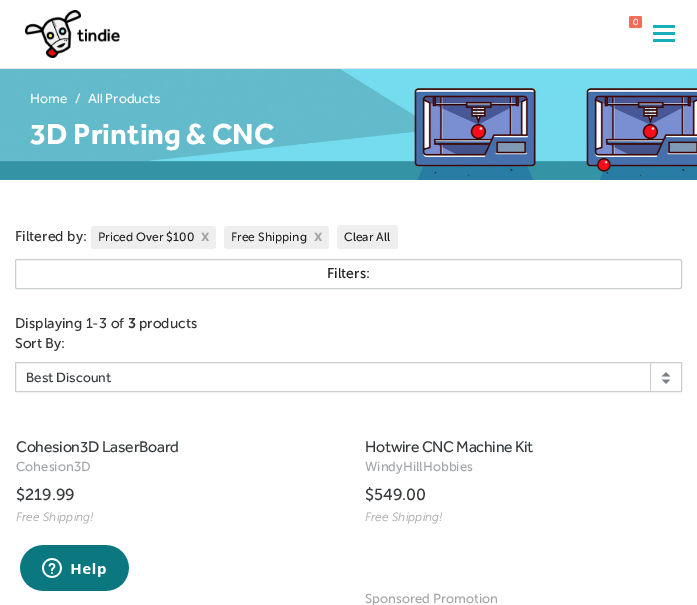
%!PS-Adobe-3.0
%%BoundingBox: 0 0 697 605
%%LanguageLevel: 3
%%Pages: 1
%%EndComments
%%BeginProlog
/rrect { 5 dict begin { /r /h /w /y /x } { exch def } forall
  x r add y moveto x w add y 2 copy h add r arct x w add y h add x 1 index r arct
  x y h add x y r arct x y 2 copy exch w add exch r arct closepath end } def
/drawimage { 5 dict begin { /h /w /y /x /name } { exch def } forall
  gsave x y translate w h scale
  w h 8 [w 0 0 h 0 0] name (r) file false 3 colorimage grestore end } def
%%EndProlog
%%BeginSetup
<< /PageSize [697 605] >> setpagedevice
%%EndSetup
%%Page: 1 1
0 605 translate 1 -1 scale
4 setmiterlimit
1 setgray
0 0 697 605 rectfill
0.894 0.898 0.906 setrgbcolor
0 68 697 1 rectfill
(images/1.raw) 25 10 95 48 drawimage
0.953 0.424 0.329 setrgbcolor
629 16 13 12 2 rrect fill
0.09 0.682 0.725 setrgbcolor
653 25 22 3 rectfill
653 32 22 3 rectfill
653 39 22 3 rectfill
(images/2.raw) 0 69 697 111 drawimage
0.933 setgray
91 226 125 23 3 rrect fill
224 226 105 23 3 rrect fill
337 225 61 24 3 rrect fill
0.792 0.808 0.812 setrgbcolor
15.5 259.5 666 29 1.5 rrect stroke
15.5 362.5 666 29 0.5 rrect stroke
(images/3.raw) 661 372 10 12 drawimage
650 363 1 28 rectfill
(images/4.raw) 20 545 109 46 drawimage
/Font-Regular [10 0 0 -10 0 0] selectfont
1 setgray
633 25 moveto (0) show
/Font-Regular [14 0 0 -14 0 0] selectfont
30 103 moveto (Home) show
75 103 moveto (/) show
88 103 moveto (All Products) show
/Font-Bold [30 0 0 -30 0 0] selectfont
30 144 moveto (3D Printing & CNC) show
/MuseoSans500-Regular [14 0 0 -14 0 0] selectfont
0.2 setgray
15 241 moveto (Filtered by:) show
/MuseoSans500-Regular [12 0 0 -12 0 0] selectfont
0.133 setgray
98 241 moveto (Priced Over $100) show
/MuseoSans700-SemiBold [16 0 0 -16 0 0] selectfont
0.635 setgray
201 241 moveto (x) show
/MuseoSans500-Regular [12 0 0 -12 0 0] selectfont
0.133 setgray
231 241 moveto (Free Shipping) show
/MuseoSans700-SemiBold [16 0 0 -16 0 0] selectfont
0.635 setgray
314 241 moveto (x) show
/MuseoSans500-Regular [12 0 0 -12 0 0] selectfont
0.133 setgray
344 241 moveto (Clear All) show
/MuseoSans500-Regular [14 0 0 -14 0 0] selectfont
327 278 moveto (Filters:) show
0.2 setgray
15 328 moveto (Displaying 1-3 of) show
/MuseoSans700-SemiBold [14 0 0 -14 0 0] selectfont
128 328 moveto (3) show
/MuseoSans500-Regular [14 0 0 -14 0 0] selectfont
139 328 moveto (products) show
15 348 moveto (Sort By:) show
/Font-Regular [14 0 0 -14 0 0] selectfont
0.216 0.231 0.243 setrgbcolor
26 382 moveto (Best Discount) show
/Font-Regular [16 0 0 -16 0 0] selectfont
16 452 moveto -0.3 0 (Cohesion3D LaserBoard) ashow
/MuseoSans500-Regular [13 0 0 -13 0 0] selectfont
0.635 0.647 0.659 setrgbcolor
16 471 moveto (Cohesion3D) show
/MuseoSans500-Regular [16 0 0 -16 0 0] selectfont
0.216 0.231 0.243 setrgbcolor
16 500 moveto ($219.99) show
/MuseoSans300-LightItalic [12 0 0 -12 0 0] selectfont
0.635 0.647 0.659 setrgbcolor
16 521 moveto (Free Shipping!) show
/Font-Regular [16 0 0 -16 0 0] selectfont
0.216 0.231 0.243 setrgbcolor
365 452 moveto -0.3 0 (Hotwire CNC Machine Kit) ashow
/MuseoSans500-Regular [13 0 0 -13 0 0] selectfont
0.635 0.647 0.659 setrgbcolor
365 471 moveto (WindyHillHobbies) show
/MuseoSans500-Regular [16 0 0 -16 0 0] selectfont
0.216 0.231 0.243 setrgbcolor
365 500 moveto ($549.00) show
/MuseoSans300-LightItalic [12 0 0 -12 0 0] selectfont
0.635 0.647 0.659 setrgbcolor
365 521 moveto (Free Shipping!) show
/MuseoSans500-Regular [13 0 0 -13 0 0] selectfont
365 603 moveto (Sponsored Promotion) show
showpage
%%EOF
